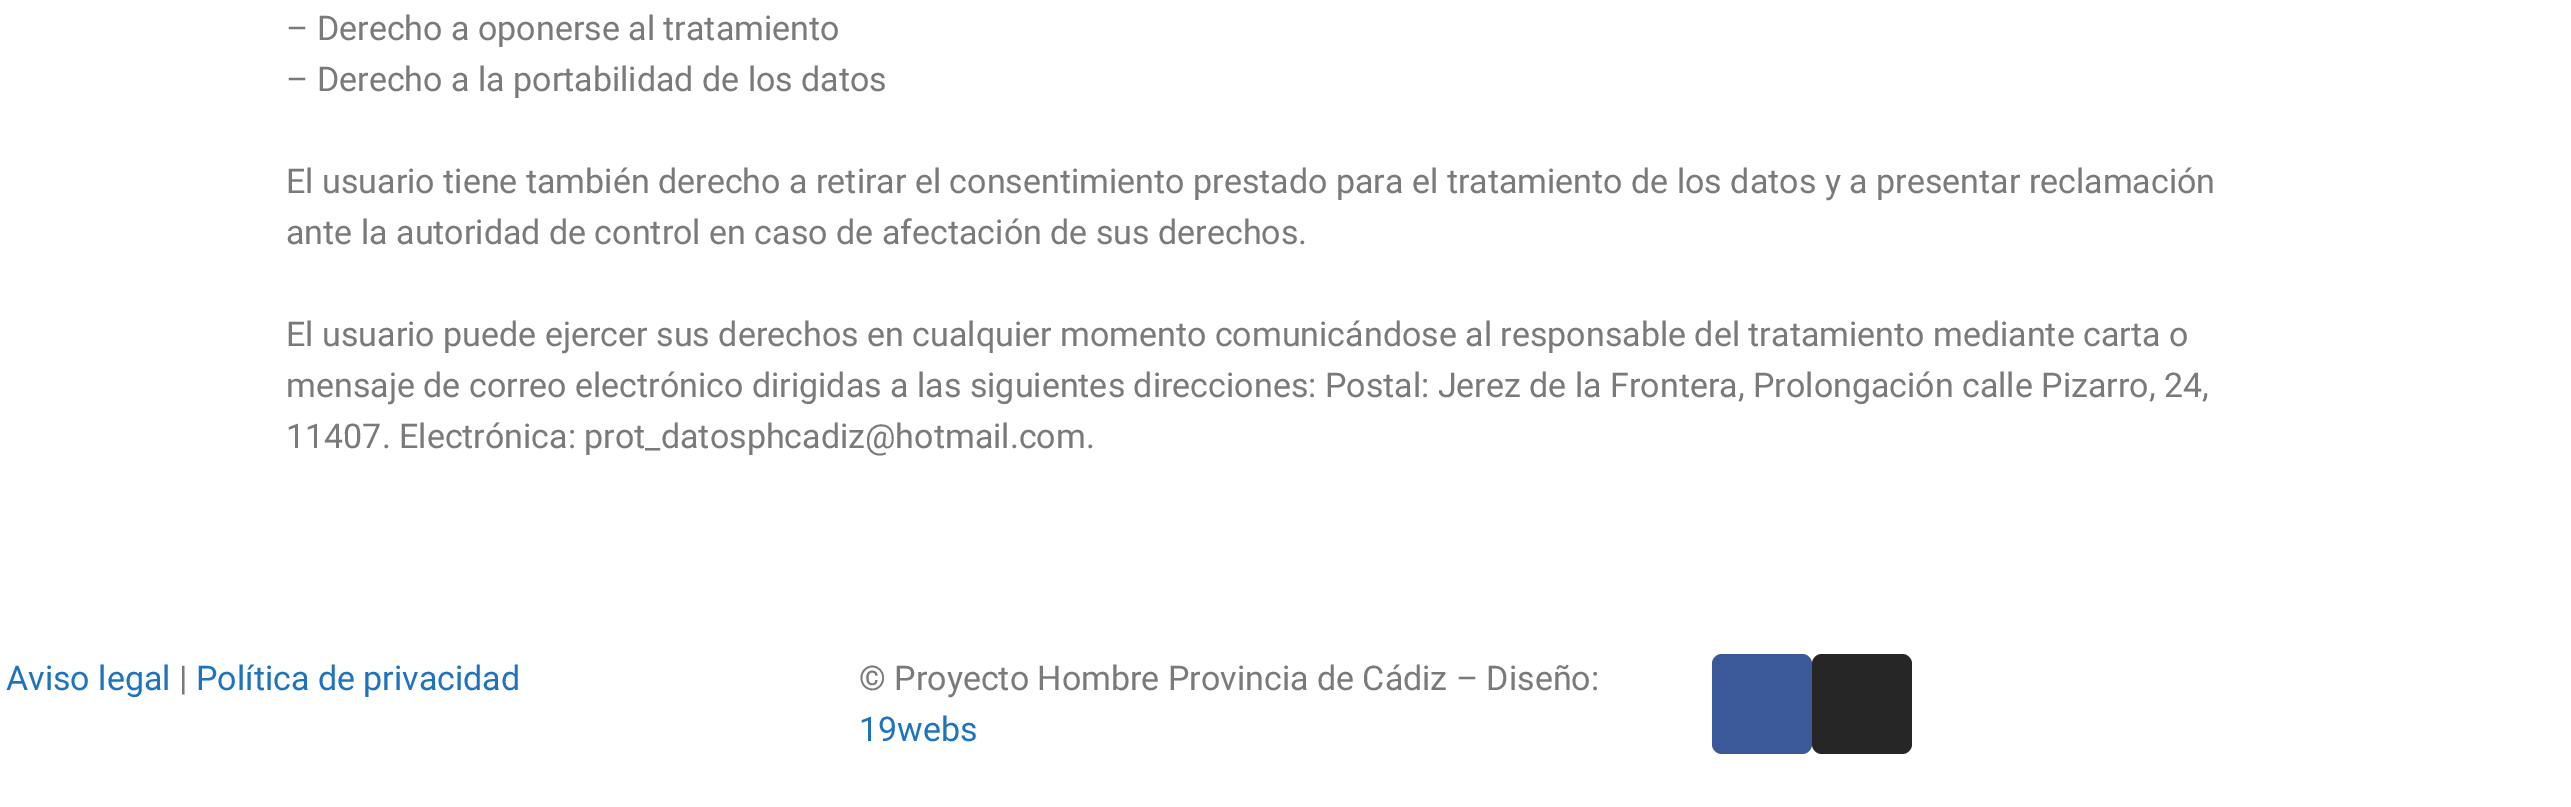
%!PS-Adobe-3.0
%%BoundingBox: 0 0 2571 807
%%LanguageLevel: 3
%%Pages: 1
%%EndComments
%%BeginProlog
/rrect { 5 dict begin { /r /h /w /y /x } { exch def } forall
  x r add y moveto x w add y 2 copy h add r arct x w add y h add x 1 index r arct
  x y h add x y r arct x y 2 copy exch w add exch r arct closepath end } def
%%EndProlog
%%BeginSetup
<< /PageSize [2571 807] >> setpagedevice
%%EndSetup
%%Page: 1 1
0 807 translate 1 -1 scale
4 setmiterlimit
1 setgray
0 0 2571 807 rectfill
0.231 0.349 0.596 setrgbcolor
1712 654 100 100 10 rrect fill
0.149 setgray
1812 654 100 100 10 rrect fill
/Roboto-Regular [34 0 0 -34 0 0] selectfont
0.478 setgray
286 40 moveto (– Derecho a oponerse al tratamiento) show
286 91 moveto (– Derecho a la portabilidad de los datos) show
286 193 moveto (El usuario tiene también derecho a retirar el consentimiento prestado para el tratamiento de los datos y a presentar reclamación) show
286 244 moveto (ante la autoridad de control en caso de afectación de sus derechos.) show
286 346 moveto (El usuario puede ejercer sus derechos en cualquier momento comunicándose al responsable del tratamiento mediante carta o) show
286 397 moveto (mensaje de correo electrónico dirigidas a las siguientes direcciones: Postal: Jerez de la Frontera, Prolongación calle Pizarro, 24,) show
286 448 moveto (11407. Electrónica: prot_datosphcadiz@hotmail.com.) show
0.118 0.451 0.745 setrgbcolor
6 690 moveto (Aviso legal) show
0.478 setgray
179 690 moveto (|) show
0.118 0.451 0.745 setrgbcolor
196 690 moveto (Política de privacidad) show
0.478 setgray
859 690 moveto (© Proyecto Hombre Provincia de Cádiz – Diseño:) show
0.118 0.451 0.745 setrgbcolor
859 741 moveto (19webs) show
showpage
%%EOF
